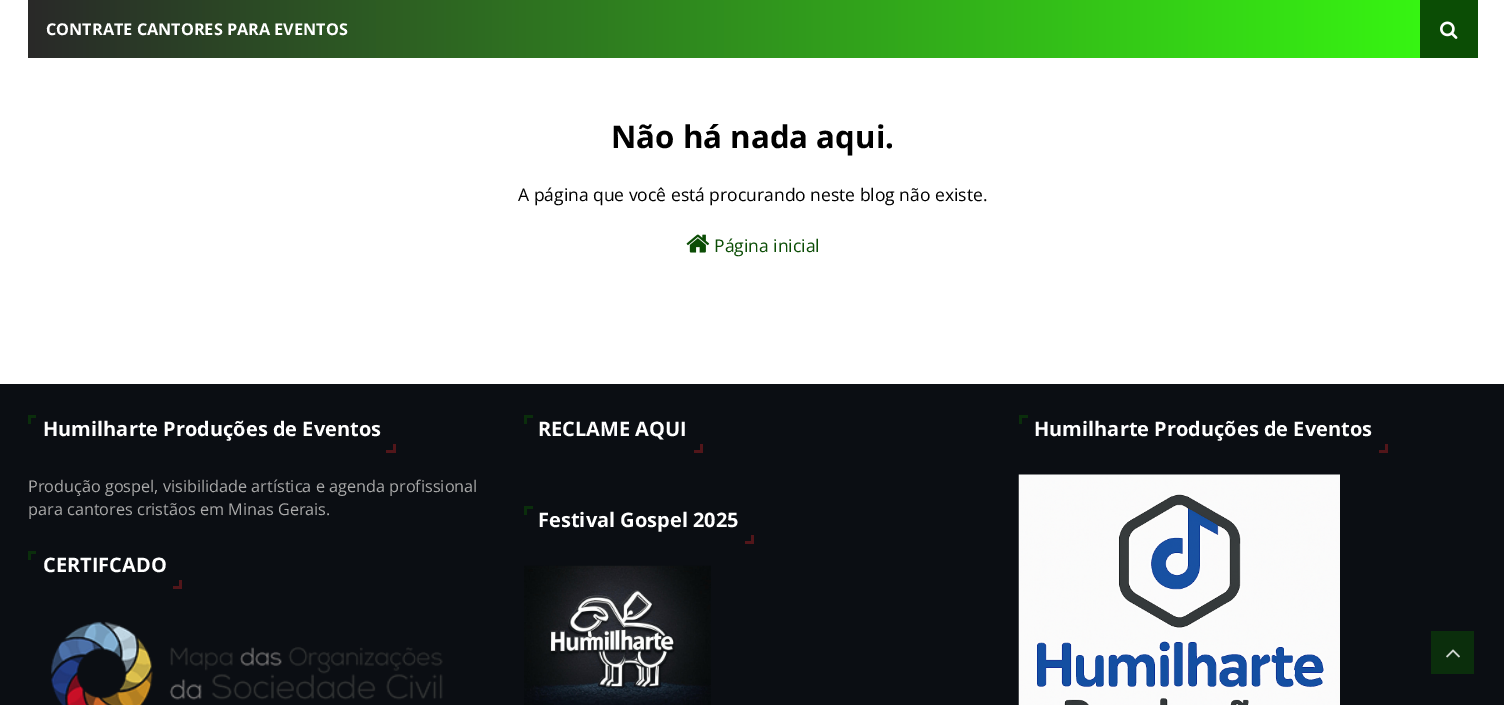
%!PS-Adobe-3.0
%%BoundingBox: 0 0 1504 705
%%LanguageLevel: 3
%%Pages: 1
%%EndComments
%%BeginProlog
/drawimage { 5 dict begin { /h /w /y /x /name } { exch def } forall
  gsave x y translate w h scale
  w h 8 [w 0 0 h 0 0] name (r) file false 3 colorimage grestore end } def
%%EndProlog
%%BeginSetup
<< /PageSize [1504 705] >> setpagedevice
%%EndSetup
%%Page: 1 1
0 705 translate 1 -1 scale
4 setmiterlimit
1 setgray
0 0 1504 705 rectfill
gsave newpath 28 0 moveto 1420 0 lineto 1420 58 lineto 28 58 lineto closepath clip newpath
<< /ShadingType 2 /ColorSpace /DeviceRGB /Coords [28 29 1478 29] /Extend [true true] /Function << /FunctionType 2 /Domain [0 1] /C0 [0.161 0.161 0.161] /C1 [0.22 0.996 0.067] /N 1 >> >> shfill grestore
0.043 0.302 0.02 setrgbcolor
1420 0 58 58 rectfill
(images/1.raw) 1440 21 18 18 drawimage
(images/2.raw) 686 234 24 19 drawimage
0.043 0.055 0.075 setrgbcolor
0 384 1504 321 rectfill
0.043 0.18 0.047 setrgbcolor
28 415 8 3 rectfill
28 415 3 9 rectfill
0.322 0.086 0.102 setrgbcolor
393 444 3 9 rectfill
386 450 9 3 rectfill
0.043 0.18 0.047 setrgbcolor
28 551 8 3 rectfill
28 551 3 9 rectfill
0.322 0.086 0.102 setrgbcolor
179 580 3 9 rectfill
173 586 8 3 rectfill
(images/3.raw) 51 621 392 84 drawimage
0.043 0.18 0.047 setrgbcolor
524 415 9 3 rectfill
524 415 3 9 rectfill
0.322 0.086 0.102 setrgbcolor
700 444 3 9 rectfill
694 450 9 3 rectfill
0.043 0.18 0.047 setrgbcolor
524 506 9 3 rectfill
524 506 3 9 rectfill
0.322 0.086 0.102 setrgbcolor
751 535 3 9 rectfill
745 541 9 3 rectfill
(images/4.raw) 524 565 187 140 drawimage
0.043 0.18 0.047 setrgbcolor
1019 415 9 3 rectfill
1019 415 3 9 rectfill
0.322 0.086 0.102 setrgbcolor
1385 444 3 9 rectfill
1379 450 9 3 rectfill
(images/5.raw) 1018 474 322 231 drawimage
0.043 0.18 0.047 setrgbcolor
1431 631 43 43 rectfill
(images/6.raw) 1446 649 14 9 drawimage
/OpenSans-Bold [16.25 0 0 -16.25 0 0] selectfont
1 setgray
46 35 moveto (CONTRATE CANTORES PARA EVENTOS) show
/OpenSans-Bold [31.25 0 0 -31.25 0 0] selectfont
0 setgray
611 148 moveto (Não há nada aqui.) show
/OpenSans-Regular [17.5 0 0 -17.5 0 0] selectfont
518 201 moveto (A página que você está procurando neste blog não existe.) show
0.043 0.302 0.02 setrgbcolor
714 252 moveto (Página inicial) show
/OpenSans-Bold [20 0 0 -20 0 0] selectfont
1 setgray
43 436 moveto (Humilharte Produções de Eventos) show
/OpenSans-Regular [16.25 0 0 -16.25 0 0] selectfont
0.667 setgray
28 492 moveto (Produção gospel, visibilidade artística e agenda profissional) show
28 515 moveto (para cantores cristãos em Minas Gerais.) show
/OpenSans-Bold [20 0 0 -20 0 0] selectfont
1 setgray
43 572 moveto (CERTIFCADO) show
538 436 moveto (RECLAME AQUI) show
538 527 moveto (Festival Gospel 2025) show
1034 436 moveto (Humilharte Produções de Eventos) show
showpage
%%EOF
